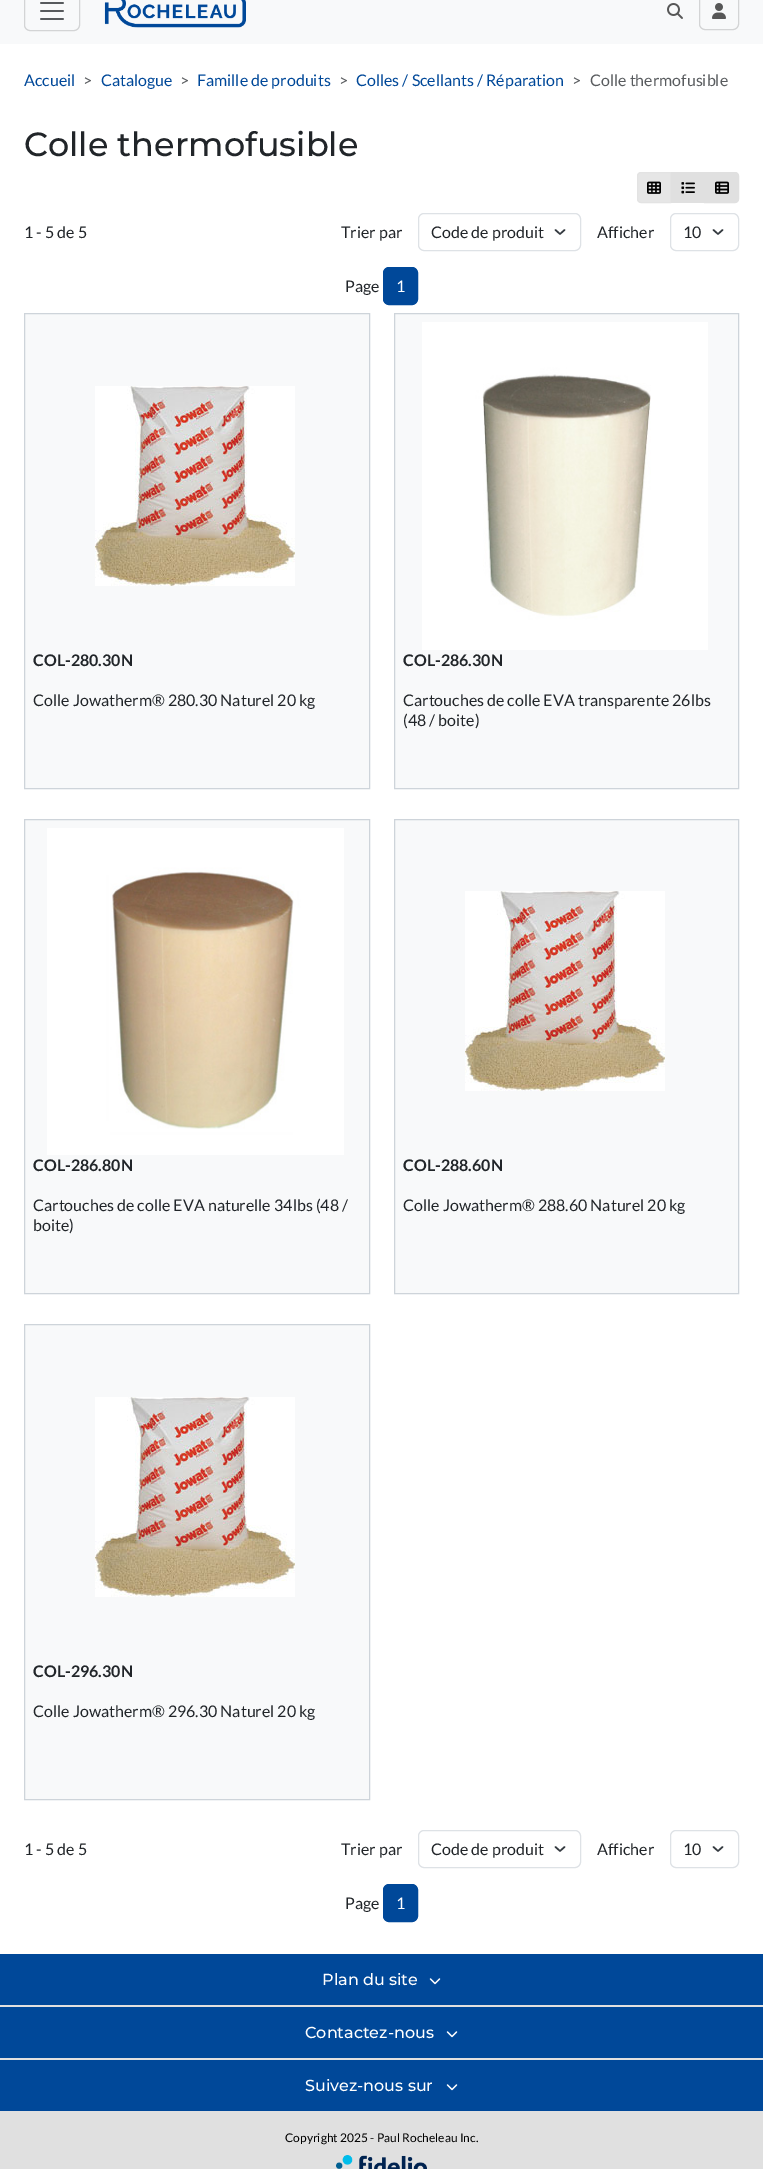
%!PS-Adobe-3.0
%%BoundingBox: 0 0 763 2169
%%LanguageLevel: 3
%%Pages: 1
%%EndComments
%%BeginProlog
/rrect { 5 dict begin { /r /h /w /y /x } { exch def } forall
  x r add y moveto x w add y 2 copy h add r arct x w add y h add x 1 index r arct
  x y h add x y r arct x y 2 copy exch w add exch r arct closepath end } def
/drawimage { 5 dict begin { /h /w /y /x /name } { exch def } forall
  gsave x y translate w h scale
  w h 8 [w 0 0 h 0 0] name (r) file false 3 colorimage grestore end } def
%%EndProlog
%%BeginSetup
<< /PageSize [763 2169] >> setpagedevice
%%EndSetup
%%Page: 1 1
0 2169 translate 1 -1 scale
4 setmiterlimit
1 setgray
0 0 763 2169 rectfill
0.973 0.976 0.98 setrgbcolor
0 0 763 44 rectfill
0.827 0.831 0.835 setrgbcolor
24.5 -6.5 55 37 5.5 rrect stroke
(images/1.raw) 40 2 24 18 drawimage
(images/2.raw) 104 0 142 28 drawimage
(images/3.raw) 667 3 16 16 drawimage
699.5 -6.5 39 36 5.5 rrect stroke
(images/4.raw) 712 3 14 16 drawimage
0.902 setgray
newpath 641 172.5 moveto 670.5 172.5 lineto 670.5 202.5 lineto 641 202.5 lineto 639 202.5 637.5 201 637.5 199 curveto 637.5 176 lineto 637.5 174 639 172.5 641 172.5 curveto closepath gsave fill grestore
0.89 setgray
stroke
(images/5.raw) 647 181 14 13 drawimage
0.878 setgray
671 172 33 31 rectfill
(images/6.raw) 681 182 14 12 drawimage
newpath 704.5 172.5 moveto 735 172.5 lineto 737 172.5 738.5 174 738.5 176 curveto 738.5 199 lineto 738.5 201 737 202.5 735 202.5 curveto 704.5 202.5 lineto closepath gsave fill grestore
stroke
(images/7.raw) 715 181 14 13 drawimage
0.204 0.227 0.251 setrgbcolor
1.5 setlinewidth
1 setlinecap
1 setlinejoin
newpath 555.5 230 moveto 560 234 lineto 564.5 230 lineto stroke
0.871 0.886 0.902 setrgbcolor
1 setlinewidth
0 setlinecap
0 setlinejoin
418.5 213.5 162 37 5.5 rrect stroke
0.204 0.227 0.251 setrgbcolor
1.5 setlinewidth
1 setlinecap
1 setlinejoin
newpath 713.5 230 moveto 718 234 lineto 722.5 230 lineto stroke
0.871 0.886 0.902 setrgbcolor
1 setlinewidth
0 setlinecap
0 setlinejoin
670.5 213.5 68 37 5.5 rrect stroke
0 0.282 0.6 setrgbcolor
383.5 267.5 34 37 5.5 rrect gsave fill grestore
stroke
0.973 0.976 0.98 setrgbcolor
newpath 24.5 313.5 moveto 369.5 313.5 lineto 369.5 788.5 lineto 24.5 788.5 lineto closepath gsave fill grestore
0.808 0.831 0.855 setrgbcolor
stroke
(images/8.raw) 95 386 200 200 drawimage
0.973 0.976 0.98 setrgbcolor
newpath 394.5 313.5 moveto 738.5 313.5 lineto 738.5 788.5 lineto 394.5 788.5 lineto closepath gsave fill grestore
0.808 0.831 0.855 setrgbcolor
stroke
(images/9.raw) 422 322 286 328 drawimage
0.973 0.976 0.98 setrgbcolor
newpath 24.5 819.5 moveto 369.5 819.5 lineto 369.5 1293.5 lineto 24.5 1293.5 lineto closepath gsave fill grestore
0.808 0.831 0.855 setrgbcolor
stroke
(images/10.raw) 47 828 297 327 drawimage
0.973 0.976 0.98 setrgbcolor
newpath 394.5 819.5 moveto 738.5 819.5 lineto 738.5 1293.5 lineto 394.5 1293.5 lineto closepath gsave fill grestore
0.808 0.831 0.855 setrgbcolor
stroke
(images/8.raw) 465 891 200 200 drawimage
0.973 0.976 0.98 setrgbcolor
newpath 24.5 1324.5 moveto 369.5 1324.5 lineto 369.5 1799.5 lineto 24.5 1799.5 lineto closepath gsave fill grestore
0.808 0.831 0.855 setrgbcolor
stroke
(images/8.raw) 95 1397 200 200 drawimage
0.204 0.227 0.251 setrgbcolor
1.5 setlinewidth
1 setlinecap
1 setlinejoin
newpath 555.5 1847 moveto 560 1851 lineto 564.5 1847 lineto stroke
0.871 0.886 0.902 setrgbcolor
1 setlinewidth
0 setlinecap
0 setlinejoin
418.5 1830.5 162 37 5.5 rrect stroke
0.204 0.227 0.251 setrgbcolor
1.5 setlinewidth
1 setlinecap
1 setlinejoin
newpath 713.5 1847 moveto 718 1851 lineto 722.5 1847 lineto stroke
0.871 0.886 0.902 setrgbcolor
1 setlinewidth
0 setlinecap
0 setlinejoin
670.5 1830.5 68 37 5.5 rrect stroke
0 0.282 0.6 setrgbcolor
383.5 1884.5 34 37 5.5 rrect gsave fill grestore
stroke
0 1954 763 157 rectfill
0.878 setgray
0 2005 763 2 rectfill
(images/11.raw) 429 1978 12 7 drawimage
0 2058 763 2 rectfill
(images/11.raw) 446 2031 12 7 drawimage
(images/11.raw) 446 2084 12 7 drawimage
0 2111 763 58 rectfill
(images/12.raw) 336 2155 91 14 drawimage
/Lato-Regular [16 0 0 -16 0 0] selectfont
0 0.282 0.6 setrgbcolor
24 86 moveto (Accueil) show
0.349 0.361 0.373 setrgbcolor
83 86 moveto (>) show
0 0.282 0.6 setrgbcolor
101 86 moveto (Catalogue) show
0.349 0.361 0.373 setrgbcolor
180 86 moveto (>) show
0 0.282 0.6 setrgbcolor
197 86 moveto (Famille de produits) show
0.349 0.361 0.373 setrgbcolor
339 86 moveto (>) show
0 0.282 0.6 setrgbcolor
356 86 moveto (Colles / Scellants / Réparation) show
0.349 0.361 0.373 setrgbcolor
572 86 moveto (>) show
590 86 moveto (Colle thermofusible) show
/Montserrat-Medium [33.5 0 0 -33.5 0 0] selectfont
0.129 0.145 0.161 setrgbcolor
24 156 moveto (Colle thermofusible) show
/Lato-Regular [16 0 0 -16 0 0] selectfont
24 238 moveto (1 - 5 de 5) show
341 238 moveto (Trier par) show
431 238 moveto (Code de produit) show
597 238 moveto (Afficher) show
683 238 moveto (10) show
345 292 moveto (Page) show
1 setgray
396 292 moveto (1) show
/Lato-Bold [16 0 0 -16 0 0] selectfont
0.129 0.145 0.161 setrgbcolor
33 666 moveto (COL-280.30N) show
/Lato-Regular [16 0 0 -16 0 0] selectfont
33 706 moveto (Colle Jowatherm® 280.30 Naturel 20 kg) show
/Lato-Bold [16 0 0 -16 0 0] selectfont
403 666 moveto (COL-286.30N) show
/Lato-Regular [16 0 0 -16 0 0] selectfont
403 706 moveto (Cartouches de colle EVA transparente 26lbs) show
403 726 moveto (\(48 / boite\)) show
/Lato-Bold [16 0 0 -16 0 0] selectfont
33 1171 moveto (COL-286.80N) show
/Lato-Regular [16 0 0 -16 0 0] selectfont
33 1211 moveto (Cartouches de colle EVA naturelle 34lbs \(48 /) show
33 1231 moveto (boite\)) show
/Lato-Bold [16 0 0 -16 0 0] selectfont
403 1171 moveto (COL-288.60N) show
/Lato-Regular [16 0 0 -16 0 0] selectfont
403 1211 moveto (Colle Jowatherm® 288.60 Naturel 20 kg) show
/Lato-Bold [16 0 0 -16 0 0] selectfont
33 1677 moveto (COL-296.30N) show
/Lato-Regular [16 0 0 -16 0 0] selectfont
33 1717 moveto (Colle Jowatherm® 296.30 Naturel 20 kg) show
24 1855 moveto (1 - 5 de 5) show
341 1855 moveto (Trier par) show
431 1855 moveto (Code de produit) show
597 1855 moveto (Afficher) show
683 1855 moveto (10) show
345 1909 moveto (Page) show
1 setgray
396 1909 moveto (1) show
/Montserrat-Medium [16 0 0 -16 0 0] selectfont
322 1985 moveto (Plan du site) show
305 2038 moveto (Contactez-nous) show
305 2091 moveto (Suivez-nous sur) show
/Lato-Regular [12 0 0 -12 0 0] selectfont
0 setgray
285 2142 moveto (Copyright 2025 - Paul Rocheleau Inc.) show
showpage
%%EOF
